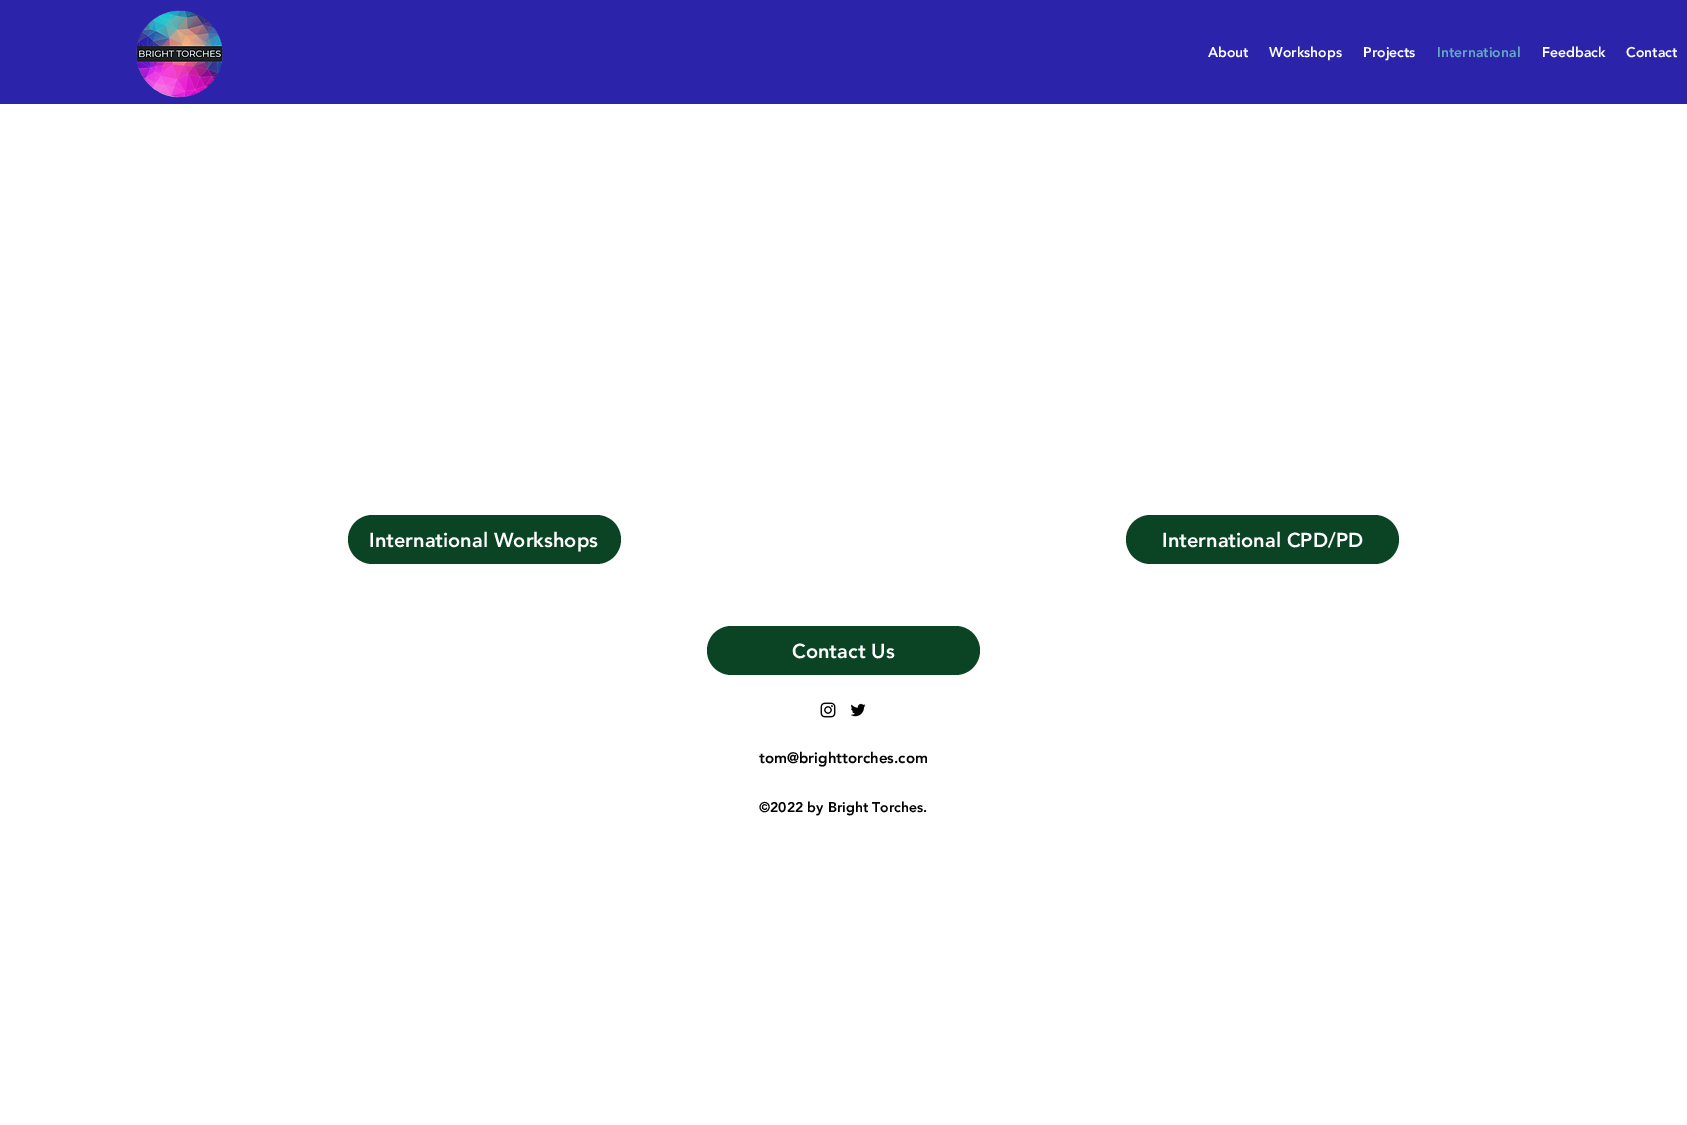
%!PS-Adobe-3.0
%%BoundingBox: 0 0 1687 1125
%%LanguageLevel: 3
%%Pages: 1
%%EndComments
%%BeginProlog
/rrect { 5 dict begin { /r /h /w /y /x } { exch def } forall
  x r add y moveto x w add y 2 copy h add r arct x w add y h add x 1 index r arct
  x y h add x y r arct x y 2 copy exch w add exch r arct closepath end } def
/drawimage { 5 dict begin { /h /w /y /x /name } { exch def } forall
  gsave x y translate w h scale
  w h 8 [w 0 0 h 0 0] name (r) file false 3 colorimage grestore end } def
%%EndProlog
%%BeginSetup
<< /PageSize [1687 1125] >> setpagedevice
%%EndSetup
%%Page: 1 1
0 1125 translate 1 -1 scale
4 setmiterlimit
1 setgray
0 0 1687 1125 rectfill
0.169 0.137 0.667 setrgbcolor
0 0 1687 104 rectfill
(images/1.raw) 136 10 87 88 drawimage
0.043 0.267 0.145 setrgbcolor
348 515 273 49 24.5 rrect fill
1126 515 273 49 24.5 rrect fill
707 626 273 49 24.5 rrect fill
(images/2.raw) 820 702 16 16 drawimage
(images/3.raw) 850 703 16 14 drawimage
/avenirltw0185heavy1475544-Black [14 0 0 -14 0 0] selectfont
1 setgray
1208 57 moveto (About) show
1269 57 moveto (Workshops) show
1363 57 moveto (Projects) show
0.388 0.667 0.753 setrgbcolor
1437 57 moveto (International) show
1 setgray
1542 57 moveto (Feedback) show
1626 57 moveto (Contact) show
/avenirltw0185heavy1475544-Black [20 0 0 -20 0 0] selectfont
369 547 moveto (International Workshops) show
1162 547 moveto (International CPD/PD) show
792 658 moveto (Contact Us) show
/avenirltw0185heavy1475544-Black [15 0 0 -15 0 0] selectfont
0 setgray
759 763 moveto (tom@brighttorches.com) show
/avenirltw0185heavy1475544-Black [14 0 0 -14 0 0] selectfont
759 812 moveto (©2022 by Bright Torches.) show
showpage
%%EOF
